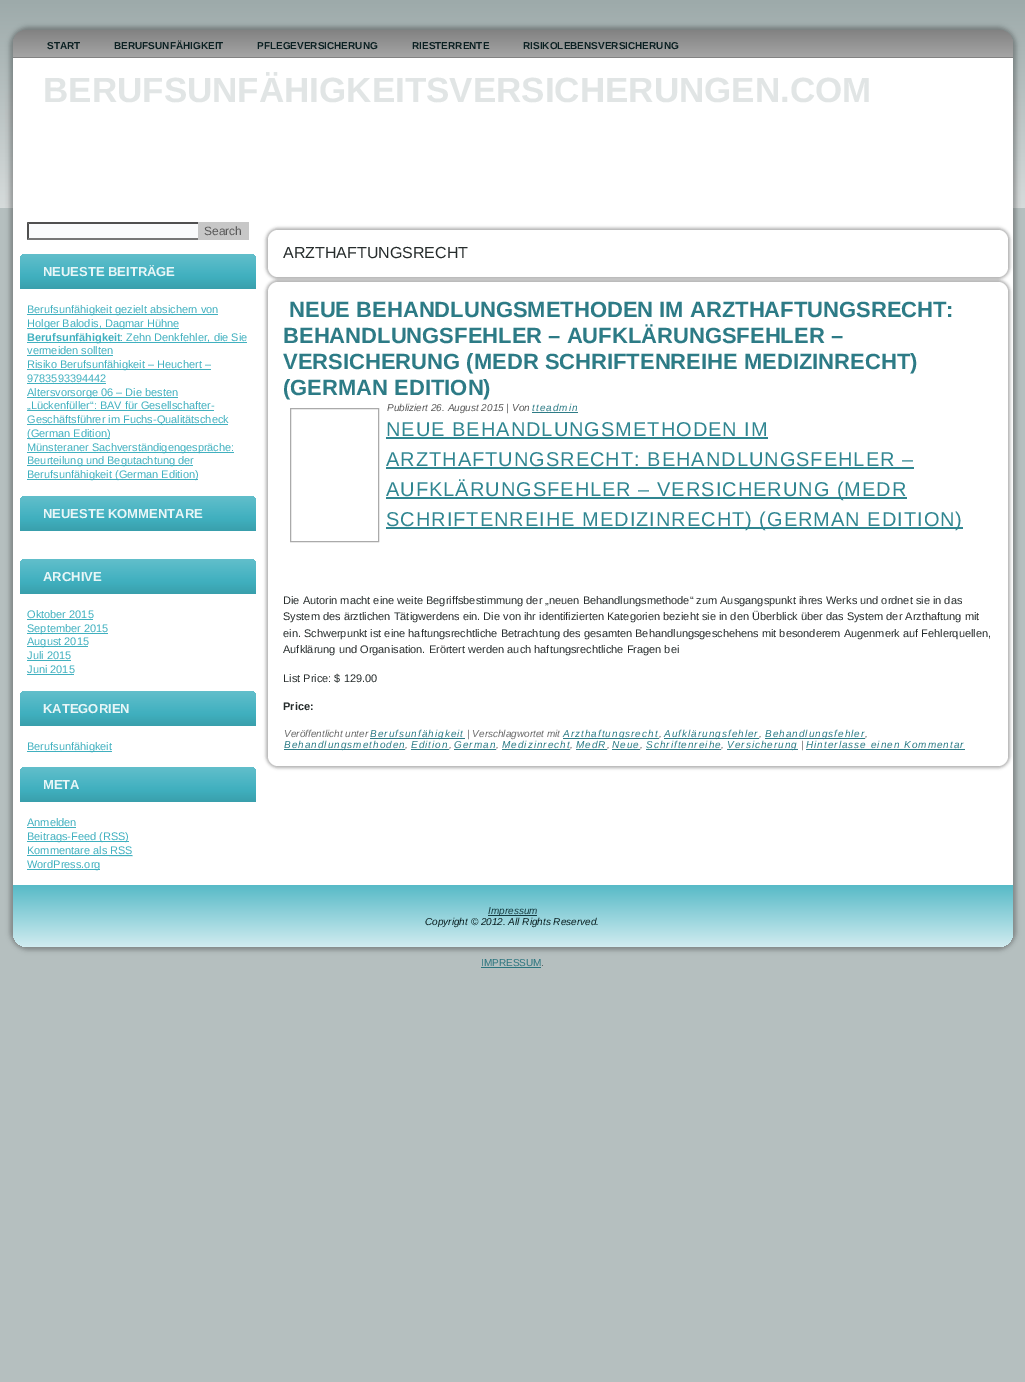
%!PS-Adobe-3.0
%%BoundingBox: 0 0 1025 1382
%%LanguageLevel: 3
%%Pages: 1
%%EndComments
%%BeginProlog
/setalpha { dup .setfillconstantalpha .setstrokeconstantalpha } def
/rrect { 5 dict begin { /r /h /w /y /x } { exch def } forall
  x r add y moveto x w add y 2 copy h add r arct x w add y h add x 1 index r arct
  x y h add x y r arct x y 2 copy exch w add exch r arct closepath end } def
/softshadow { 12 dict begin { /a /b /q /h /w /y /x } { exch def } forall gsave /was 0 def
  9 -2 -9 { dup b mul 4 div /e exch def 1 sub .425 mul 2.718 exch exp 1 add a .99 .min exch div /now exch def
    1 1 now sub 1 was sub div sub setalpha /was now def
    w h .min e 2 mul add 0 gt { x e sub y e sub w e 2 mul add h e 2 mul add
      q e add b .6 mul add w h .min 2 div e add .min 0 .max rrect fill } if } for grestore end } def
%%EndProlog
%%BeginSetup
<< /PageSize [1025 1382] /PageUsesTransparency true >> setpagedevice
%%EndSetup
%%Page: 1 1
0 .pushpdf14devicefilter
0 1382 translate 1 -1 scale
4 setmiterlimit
0.71 0.749 0.749 setrgbcolor
0 0 1025 1382 rectfill
gsave newpath 0 0 moveto 1025 0 lineto 1025 208 lineto 0 208 lineto closepath clip newpath
<< /ShadingType 2 /ColorSpace /DeviceRGB /Coords [513 0 513 208] /Extend [true true] /Function << /FunctionType 2 /Domain [0 1] /C0 [0.616 0.667 0.667] /C1 [0.839 0.859 0.859] /N 1 >> >> shfill grestore
0 setgray
10 27 1006 923 18 2.5 0.3 softshadow
1 setgray
13 30 1000 917 15 rrect fill
gsave newpath 28 30 moveto 998 30 lineto 1006.5 30 1013 36.5 1013 45 curveto 1013 58 lineto 13 58 lineto 13 45 lineto 13 36.5 19.5 30 28 30 curveto closepath clip newpath
<< /ShadingType 2 /ColorSpace /DeviceRGB /Coords [513 30 513 58] /Extend [true true] /Function << /FunctionType 2 /Domain [0 1] /C0 [0.51 0.51 0.51] /C1 [0.651 0.651 0.651] /N 1 >> >> shfill grestore
0.51 setgray
13 57 1000 1 rectfill
0.976 0.98 0.984 setrgbcolor
27 222 171 18 rectfill
0.31 setgray
newpath 27 222 moveto 249 222 lineto 247 224 lineto 29 224 lineto closepath fill
0.463 setgray
newpath 249 240 moveto 27 240 lineto 29 238 lineto 247 238 lineto closepath fill
0.31 setgray
newpath 27 240 moveto 27 222 lineto 29 224 lineto 29 238 lineto closepath fill
0.78 setgray
198 222 51 18 rectfill
gsave newpath 26 254 moveto 250 254 lineto 253.5 254 256 256.5 256 260 curveto 256 289 lineto 20 289 lineto 20 260 lineto 20 256.5 22.5 254 26 254 curveto closepath clip newpath
<< /ShadingType 2 /ColorSpace /DeviceRGB /Coords [138 254 138 289] /Extend [true true] /Function << /FunctionType 3 /Domain [0 1] /Functions [<< /FunctionType 2 /Domain [0 1] /C0 [0.384 0.749 0.796] /C1 [0.251 0.69 0.749] /N 1 >> << /FunctionType 2 /Domain [0 1] /C0 [0.251 0.69 0.749] /C1 [0.224 0.624 0.675] /N 1 >>] /Bounds [0.64] /Encode [0 1 0 1] >> >> shfill grestore
0.251 0.69 0.749 setrgbcolor
27 314 191 1 rectfill
27 328 152 1 rectfill
27 342 220 1 rectfill
27 355 86 1 rectfill
27 369 184 1 rectfill
27 383 79 1 rectfill
27 397 151 1 rectfill
27 410 187 1 rectfill
27 424 201 1 rectfill
27 438 83 1 rectfill
27 452 207 1 rectfill
27 465 166 1 rectfill
27 479 171 1 rectfill
gsave newpath 26 496 moveto 250 496 lineto 253.5 496 256 498.5 256 502 curveto 256 531 lineto 20 531 lineto 20 502 lineto 20 498.5 22.5 496 26 496 curveto closepath clip newpath
<< /ShadingType 2 /ColorSpace /DeviceRGB /Coords [138 496 138 531] /Extend [true true] /Function << /FunctionType 3 /Domain [0 1] /Functions [<< /FunctionType 2 /Domain [0 1] /C0 [0.384 0.749 0.796] /C1 [0.251 0.69 0.749] /N 1 >> << /FunctionType 2 /Domain [0 1] /C0 [0.251 0.69 0.749] /C1 [0.224 0.624 0.675] /N 1 >>] /Bounds [0.64] /Encode [0 1 0 1] >> >> shfill grestore
gsave newpath 26 559 moveto 250 559 lineto 253.5 559 256 561.5 256 565 curveto 256 594 lineto 20 594 lineto 20 565 lineto 20 561.5 22.5 559 26 559 curveto closepath clip newpath
<< /ShadingType 2 /ColorSpace /DeviceRGB /Coords [138 559 138 594] /Extend [true true] /Function << /FunctionType 3 /Domain [0 1] /Functions [<< /FunctionType 2 /Domain [0 1] /C0 [0.384 0.749 0.796] /C1 [0.251 0.69 0.749] /N 1 >> << /FunctionType 2 /Domain [0 1] /C0 [0.251 0.69 0.749] /C1 [0.224 0.624 0.675] /N 1 >>] /Bounds [0.64] /Encode [0 1 0 1] >> >> shfill grestore
27 619 66 1 rectfill
27 633 81 1 rectfill
27 646 61 1 rectfill
27 660 44 1 rectfill
27 674 47 1 rectfill
gsave newpath 26 691 moveto 250 691 lineto 253.5 691 256 693.5 256 697 curveto 256 726 lineto 20 726 lineto 20 697 lineto 20 693.5 22.5 691 26 691 curveto closepath clip newpath
<< /ShadingType 2 /ColorSpace /DeviceRGB /Coords [138 691 138 726] /Extend [true true] /Function << /FunctionType 3 /Domain [0 1] /Functions [<< /FunctionType 2 /Domain [0 1] /C0 [0.384 0.749 0.796] /C1 [0.251 0.69 0.749] /N 1 >> << /FunctionType 2 /Domain [0 1] /C0 [0.251 0.69 0.749] /C1 [0.224 0.624 0.675] /N 1 >>] /Bounds [0.64] /Encode [0 1 0 1] >> >> shfill grestore
27 751 85 1 rectfill
gsave newpath 26 767 moveto 250 767 lineto 253.5 767 256 769.5 256 773 curveto 256 802 lineto 20 802 lineto 20 773 lineto 20 769.5 22.5 767 26 767 curveto closepath clip newpath
<< /ShadingType 2 /ColorSpace /DeviceRGB /Coords [138 767 138 802] /Extend [true true] /Function << /FunctionType 3 /Domain [0 1] /Functions [<< /FunctionType 2 /Domain [0 1] /C0 [0.384 0.749 0.796] /C1 [0.251 0.69 0.749] /N 1 >> << /FunctionType 2 /Domain [0 1] /C0 [0.251 0.69 0.749] /C1 [0.224 0.624 0.675] /N 1 >>] /Bounds [0.64] /Encode [0 1 0 1] >> >> shfill grestore
27 827 49 1 rectfill
27 841 75 1 rectfill
102 841 27 1 rectfill
27 855 83 1 rectfill
[1 1] 0 setdash
newpath 109.5 855.5 moveto 132.5 855.5 lineto stroke
110 855 22 1 rectfill
27 869 73 1 rectfill
0 setgray
266 228 744 51 12 1.5 0.3 softshadow
1 setgray
268 230 740 47 10 rrect fill
0 setgray
266 280 744 488 12 1.5 0.3 softshadow
1 setgray
268 282 740 484 10 rrect fill
0.667 setgray
[] 0 setdash
290.5 408.5 88 133 rectstroke
0.176 0.482 0.525 setrgbcolor
532 412 46 1 rectfill
0.188 0.525 0.569 setrgbcolor
386 437 382 2 rectfill
386 467 528 2 rectfill
386 497 521 2 rectfill
386 527 577 2 rectfill
0.176 0.482 0.525 setrgbcolor
370 738 95 1 rectfill
563 738 96 1 rectfill
664 738 95 1 rectfill
765 738 100 1 rectfill
284 749 121 1 rectfill
411 749 38 1 rectfill
454 749 42 1 rectfill
502 749 68 1 rectfill
576 749 31 1 rectfill
612 749 28 1 rectfill
646 749 75 1 rectfill
727 749 71 1 rectfill
806 749 159 1 rectfill
gsave newpath 13 885 moveto 1013 885 lineto 1013 932 lineto 1013 940.5 1006.5 947 998 947 curveto 28 947 lineto 19.5 947 13 940.5 13 932 curveto closepath clip newpath
<< /ShadingType 2 /ColorSpace /DeviceRGB /Coords [513 885 513 947] /Extend [true true] /Function << /FunctionType 2 /Domain [0 1] /C0 [0.341 0.729 0.78] /C1 [0.82 0.925 0.941] /N 1 >> >> shfill grestore
0.086 0.235 0.255 setrgbcolor
488 915 49 1 rectfill
0.165 0.455 0.494 setrgbcolor
481 967 60 1 rectfill
/LiberationSans-Bold [10 0 0 -10 0 0] selectfont
0.043 0.125 0.133 setrgbcolor
47 49 moveto (START) show
114 49 moveto (BERUFSUNFÄHIGKEIT) show
257 49 moveto (PFLEGEVERSICHERUNG) show
412 49 moveto (RIESTERRENTE) show
523 49 moveto (RISIKOLEBENSVERSICHERUNG) show
/LiberationSans-Bold [35 0 0 -35 0 0] selectfont
0.882 0.898 0.898 setrgbcolor
43 102 moveto (BERUFSUNFÄHIGKEITSVERSICHERUNGEN.COM) show
/LiberationSans-Regular [12 0 0 -12 0 0] selectfont
0.349 setgray
204 235 moveto (Search) show
/LiberationSans-Bold [13 0 0 -13 0 0] selectfont
0.91 0.965 0.969 setrgbcolor
43 276 moveto (NEUESTE BEITRÄGE) show
/LiberationSans-Regular [11 0 0 -11 0 0] selectfont
0.251 0.69 0.749 setrgbcolor
27 313 moveto (Berufsunfähigkeit gezielt absichern von) show
27 327 moveto (Holger Balodis, Dagmar Hühne) show
/LiberationSans-Bold [11 0 0 -11 0 0] selectfont
27 341 moveto (Berufsunfähigkeit) show
/LiberationSans-Regular [11 0 0 -11 0 0] selectfont
120 341 moveto (: Zehn Denkfehler, die Sie) show
27 354 moveto (vermeiden sollten) show
27 368 moveto (Risiko Berufsunfähigkeit – Heuchert –) show
27 382 moveto (9783593394442) show
27 396 moveto (Altersvorsorge 06 – Die besten) show
27 409 moveto („Lückenfüller“: BAV für Gesellschafter-) show
27 423 moveto (Geschäftsführer im Fuchs-Qualitätscheck) show
27 437 moveto (\(German Edition\)) show
27 451 moveto (Münsteraner Sachverständigengespräche:) show
27 464 moveto (Beurteilung und Begutachtung der) show
27 478 moveto (Berufsunfähigkeit \(German Edition\)) show
/LiberationSans-Bold [13 0 0 -13 0 0] selectfont
0.91 0.965 0.969 setrgbcolor
43 518 moveto (NEUESTE KOMMENTARE) show
43 581 moveto (ARCHIVE) show
/LiberationSans-Regular [11 0 0 -11 0 0] selectfont
0.251 0.69 0.749 setrgbcolor
27 618 moveto (Oktober 2015) show
27 632 moveto (September 2015) show
27 645 moveto (August 2015) show
27 659 moveto (Juli 2015) show
27 673 moveto (Juni 2015) show
/LiberationSans-Bold [13 0 0 -13 0 0] selectfont
0.91 0.965 0.969 setrgbcolor
43 713 moveto (KATEGORIEN) show
/LiberationSans-Regular [11 0 0 -11 0 0] selectfont
0.251 0.69 0.749 setrgbcolor
27 750 moveto (Berufsunfähigkeit) show
/LiberationSans-Bold [13 0 0 -13 0 0] selectfont
0.91 0.965 0.969 setrgbcolor
43 789 moveto (META) show
/LiberationSans-Regular [11 0 0 -11 0 0] selectfont
0.251 0.69 0.749 setrgbcolor
27 826 moveto (Anmelden) show
27 840 moveto (Beitrags-Feed \(RSS) show
125 840 moveto (\)) show
27 854 moveto (Kommentare als RSS) show
27 868 moveto (WordPress.org) show
/LiberationSans-Regular [16 0 0 -16 0 0] selectfont
0.149 0.173 0.173 setrgbcolor
283 258 moveto (ARZTHAFTUNGSRECHT) show
/LiberationSans-Bold [22 0 0 -22 0 0] selectfont
0.176 0.482 0.525 setrgbcolor
289 317 moveto (NEUE BEHANDLUNGSMETHODEN IM ARZTHAFTUNGSRECHT:) show
283 343 moveto (BEHANDLUNGSFEHLER – AUFKLÄRUNGSFEHLER –) show
283 369 moveto (VERSICHERUNG \(MEDR SCHRIFTENREIHE MEDIZINRECHT\)) show
283 395 moveto (\(GERMAN EDITION\)) show
/LiberationSans-Italic [10 0 0 -10 0 0] selectfont
0.349 setgray
387 411 moveto (Publiziert 26. August 2015 | Von) show
0.176 0.482 0.525 setrgbcolor
532 411 moveto 1 0 (tteadmin) ashow
/LiberationSans-Regular [20 0 0 -20 0 0] selectfont
0.188 0.525 0.569 setrgbcolor
386 436 moveto 1 0 (NEUE BEHANDLUNGSMETHODEN IM) ashow
386 466 moveto 1 0 (ARZTHAFTUNGSRECHT: BEHANDLUNGSFEHLER –) ashow
386 496 moveto 1 0 (AUFKLÄRUNGSFEHLER – VERSICHERUNG \(MEDR) ashow
386 526 moveto 1 0 (SCHRIFTENREIHE MEDIZINRECHT\) \(GERMAN EDITION\)) ashow
/LiberationSans-Regular [11 0 0 -11 0 0] selectfont
0.149 0.173 0.173 setrgbcolor
283 604 moveto (Die Autorin macht eine weite Begriffsbestimmung der „neuen Behandlungsmethode“ zum Ausgangspunkt ihres Werks und ordnet sie in das) show
283 620 moveto (System des ärztlichen Tätigwerdens ein. Die von ihr identifizierten Kategorien bezieht sie in den Überblick über das System der Arzthaftung mit) show
283 637 moveto (ein. Schwerpunkt ist eine haftungsrechtliche Betrachtung des gesamten Behandlungsgeschehens mit besonderem Augenmerk auf Fehlerquellen,) show
283 653 moveto (Aufklärung und Organisation. Erörtert werden auch haftungsrechtliche Fragen bei) show
283 682 moveto (List Price: $ 129.00) show
/LiberationSans-Bold [11 0 0 -11 0 0] selectfont
283 710 moveto (Price:) show
/LiberationSans-Italic [10 0 0 -10 0 0] selectfont
0.412 setgray
284 737 moveto (Veröffentlicht unter) show
0.176 0.482 0.525 setrgbcolor
370 737 moveto 1 0 (Berufsunfähigkeit) ashow
0.412 setgray
467 737 moveto (| Verschlagwortet mit) show
0.176 0.482 0.525 setrgbcolor
563 737 moveto 1 0 (Arzthaftungsrecht) ashow
0.412 setgray
659 737 moveto (,) show
0.176 0.482 0.525 setrgbcolor
664 737 moveto 1 0 (Aufklärungsfehler) ashow
0.412 setgray
759 737 moveto (,) show
0.176 0.482 0.525 setrgbcolor
765 737 moveto 1 0 (Behandlungsfehler) ashow
0.412 setgray
865 737 moveto (,) show
0.176 0.482 0.525 setrgbcolor
284 748 moveto 1 0 (Behandlungsmethoden) ashow
0.412 setgray
405 748 moveto (,) show
0.176 0.482 0.525 setrgbcolor
411 748 moveto 1 0 (Edition) ashow
0.412 setgray
449 748 moveto (,) show
0.176 0.482 0.525 setrgbcolor
454 748 moveto 1 0 (German) ashow
0.412 setgray
496 748 moveto (,) show
0.176 0.482 0.525 setrgbcolor
502 748 moveto 1 0 (Medizinrecht) ashow
0.412 setgray
570 748 moveto (,) show
0.176 0.482 0.525 setrgbcolor
576 748 moveto 1 0 (MedR) ashow
0.412 setgray
607 748 moveto (,) show
0.176 0.482 0.525 setrgbcolor
612 748 moveto 1 0 (Neue) ashow
0.412 setgray
640 748 moveto (,) show
0.176 0.482 0.525 setrgbcolor
646 748 moveto 1 0 (Schriftenreihe) ashow
0.412 setgray
721 748 moveto (,) show
0.176 0.482 0.525 setrgbcolor
727 748 moveto 1 0 (Versicherung) ashow
0.412 setgray
801 748 moveto (|) show
0.176 0.482 0.525 setrgbcolor
806 748 moveto 1 0 (Hinterlasse einen Kommentar) ashow
0.086 0.235 0.255 setrgbcolor
488 914 moveto (Impressum) show
0.043 0.125 0.133 setrgbcolor
425 925 moveto (Copyright © 2012. All Rights Reserved.) show
/LiberationSans-Regular [10 0 0 -10 0 0] selectfont
0.165 0.455 0.494 setrgbcolor
481 966 moveto (IMPRESSUM) show
0.224 0.255 0.255 setrgbcolor
541 966 moveto (.) show
.poppdf14devicefilter showpage
%%EOF
